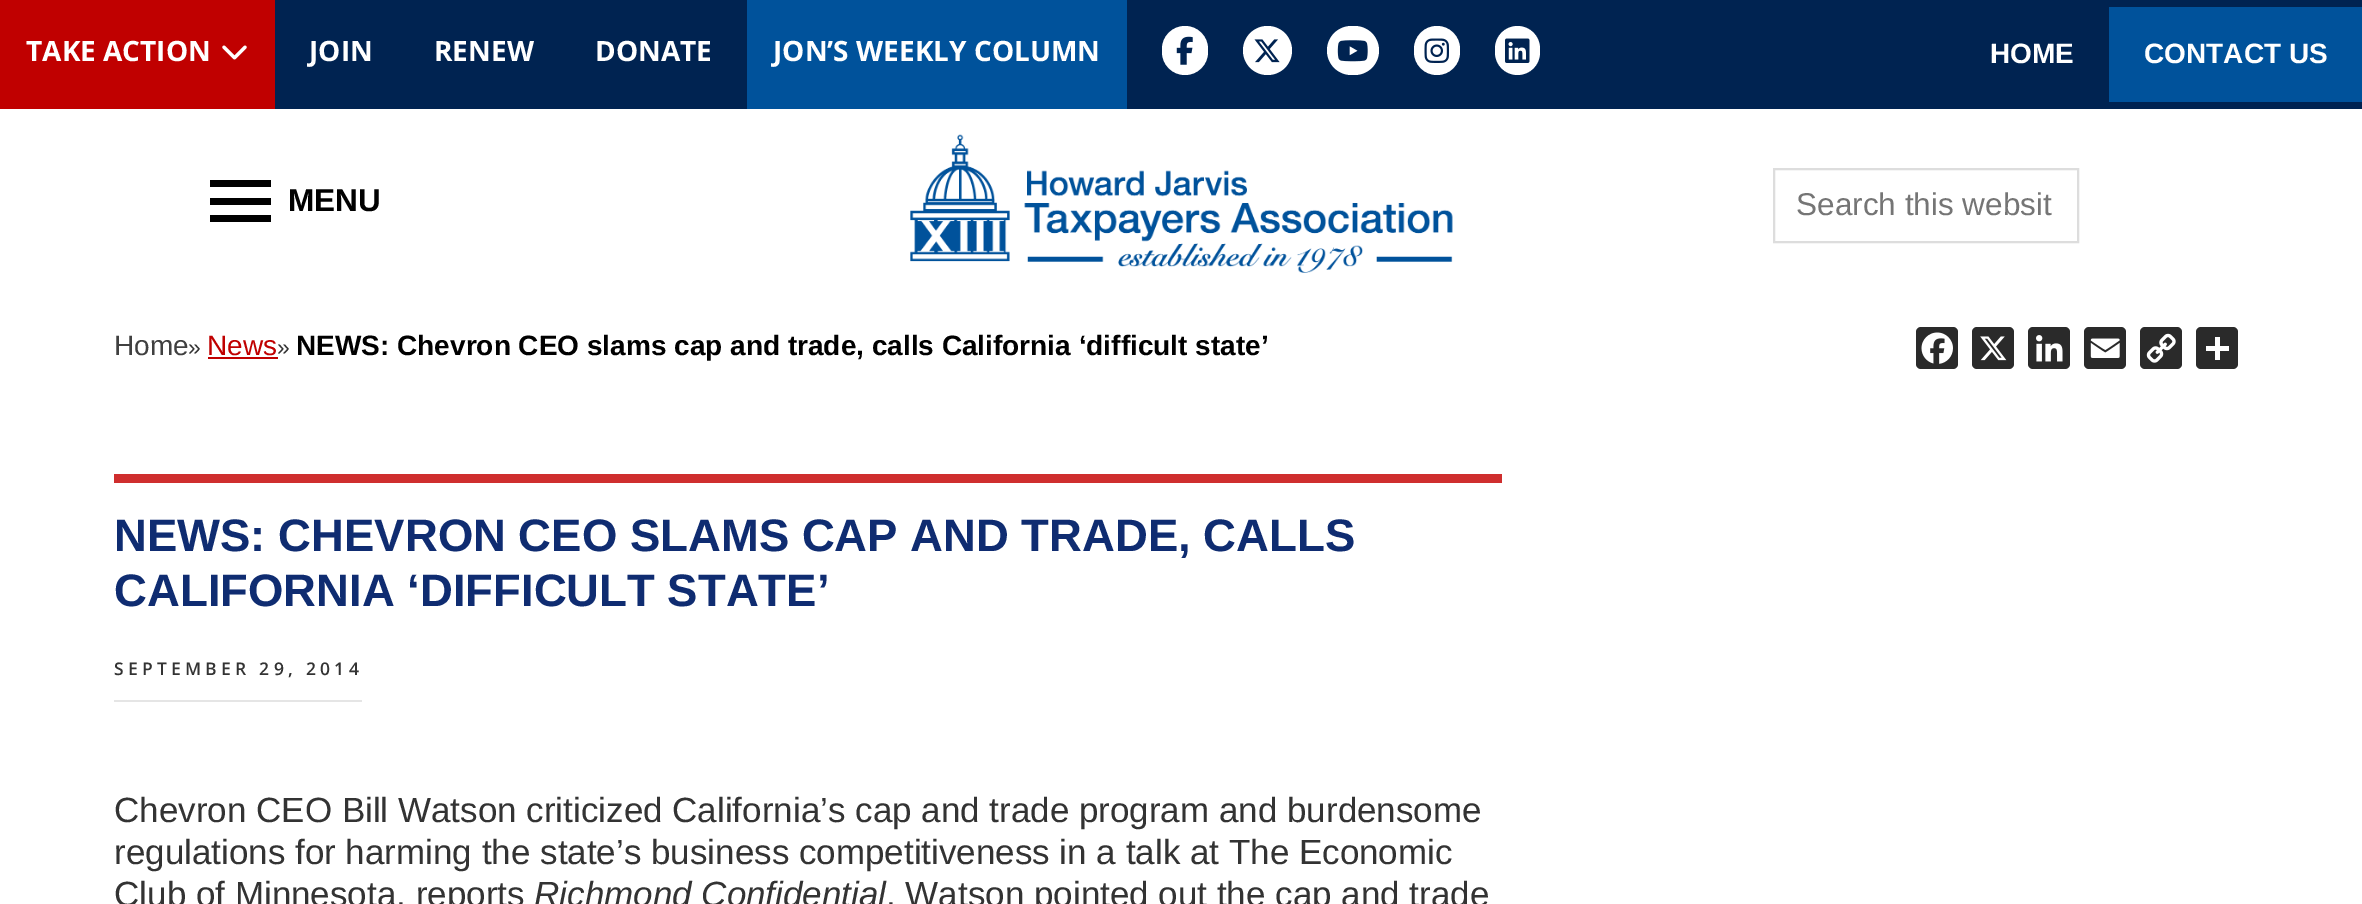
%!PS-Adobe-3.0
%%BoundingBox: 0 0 2362 904
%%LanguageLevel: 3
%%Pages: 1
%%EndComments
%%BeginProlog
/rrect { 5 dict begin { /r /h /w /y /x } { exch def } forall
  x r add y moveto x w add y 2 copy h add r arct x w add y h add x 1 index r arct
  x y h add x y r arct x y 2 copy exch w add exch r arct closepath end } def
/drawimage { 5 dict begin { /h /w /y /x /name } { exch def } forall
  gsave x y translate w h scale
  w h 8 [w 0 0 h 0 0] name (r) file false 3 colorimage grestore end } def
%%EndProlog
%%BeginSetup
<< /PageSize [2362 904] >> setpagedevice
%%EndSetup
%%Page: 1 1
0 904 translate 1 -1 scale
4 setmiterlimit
1 setgray
0 0 2362 904 rectfill
0 0.137 0.318 setrgbcolor
275 0 2087 109 rectfill
0.753 0 0 setrgbcolor
0 0 275 109 rectfill
(images/1.raw) 222 45 25 15 drawimage
0 0.322 0.608 setrgbcolor
747 0 380 109 rectfill
1 setgray
1162 26 46 49 23 rrect fill
(images/2.raw) 1176 36 17 29 drawimage
newpath 1267.5 50.5 24.5 0 360 arc closepath fill
(images/3.raw) 1254 39 26 24 drawimage
1327 26 52 49 24.5 rrect fill
(images/4.raw) 1337 40 31 22 drawimage
1414 26 46 49 23 rrect fill
(images/5.raw) 1424 38 25 25 drawimage
1495 26 45 49 22.5 rrect fill
(images/6.raw) 1505 38 25 25 drawimage
0 0.322 0.608 setrgbcolor
2109 7 253 95 rectfill
0 setgray
210 198 61 7 rectfill
210 180 61 7 rectfill
210 215 61 7 rectfill
(images/7.raw) 910 134 543 139 drawimage
0.867 setgray
2 setlinewidth
1774 169 304 73 rectstroke
0.753 0 0 setrgbcolor
208 357 70 2 rectfill
0.165 setgray
1916 327 42 42 5 rrect fill
(images/8.raw) 1921 332 32 32 drawimage
1972 327 42 42 5 rrect fill
(images/9.raw) 1980 336 27 25 drawimage
2028 327 42 42 5 rrect fill
(images/10.raw) 2036 335 27 27 drawimage
2084 327 42 42 5 rrect fill
(images/11.raw) 2090 338 30 20 drawimage
2140 327 42 42 5 rrect fill
(images/12.raw) 2146 333 30 30 drawimage
2196 327 42 42 5 rrect fill
1 setgray
2215 337 5 23 rectfill
2206 346 23 5 rectfill
0.812 0.18 0.18 setrgbcolor
114 474 1388 9 rectfill
0.898 setgray
114 700 248 2 rectfill
/OpenSans-Bold [28 0 0 -28 0 0] selectfont
1 setgray
26 61 moveto (TAKE ACTION) show
309 61 moveto (JOIN) show
434 61 moveto (RENEW) show
595 61 moveto (DONATE) show
773 61 moveto (JON’S WEEKLY COLUMN) show
/LiberationSans-Bold [28 0 0 -28 0 0] selectfont
1990 63 moveto (HOME) show
2144 63 moveto (CONTACT US) show
/LiberationSans-Bold [31.5 0 0 -31.5 0 0] selectfont
0 setgray
288 211 moveto (MENU) show
/LiberationSans-Regular [31.5 0 0 -31.5 0 0] selectfont
0.459 setgray
1796 215 moveto (Search this websit) show
/LiberationSans-Regular [28 0 0 -28 0 0] selectfont
0.251 setgray
114 355 moveto (Home) show
/LiberationSans-Regular [23 0 0 -23 0 0] selectfont
0.2 setgray
188 355 moveto (») show
/LiberationSans-Regular [28 0 0 -28 0 0] selectfont
0.753 0 0 setrgbcolor
207 355 moveto (News) show
/LiberationSans-Regular [23 0 0 -23 0 0] selectfont
0.2 setgray
277 355 moveto (») show
/LiberationSans-Bold [28 0 0 -28 0 0] selectfont
0 setgray
296 355 moveto (NEWS: Chevron CEO slams cap and trade, calls California ‘difficult state’) show
/LiberationSans-Bold [45.5 0 0 -45.5 0 0] selectfont
0.059 0.173 0.443 setrgbcolor
114 551 moveto (NEWS: CHEVRON CEO SLAMS CAP AND TRADE, CALLS) show
114 606 moveto (CALIFORNIA ‘DIFFICULT STATE’) show
/OpenSans-SemiBold [17.5 0 0 -17.5 0 0] selectfont
0.2 setgray
114 675 moveto 4.25 0 (SEPTEMBER 29, 2014) ashow
/LiberationSans-Regular [35 0 0 -35 0 0] selectfont
114 822 moveto (Chevron CEO Bill Watson criticized California’s cap and trade program and burdensome) show
114 864 moveto (regulations for harming the state’s business competitiveness in a talk at The Economic) show
114 906 moveto (Club of Minnesota, reports) show
/LiberationSans-Italic [35 0 0 -35 0 0] selectfont
534 906 moveto (Richmond Confidential) show
/LiberationSans-Regular [35 0 0 -35 0 0] selectfont
886 906 moveto (. Watson pointed out the cap and trade) show
showpage
%%EOF
